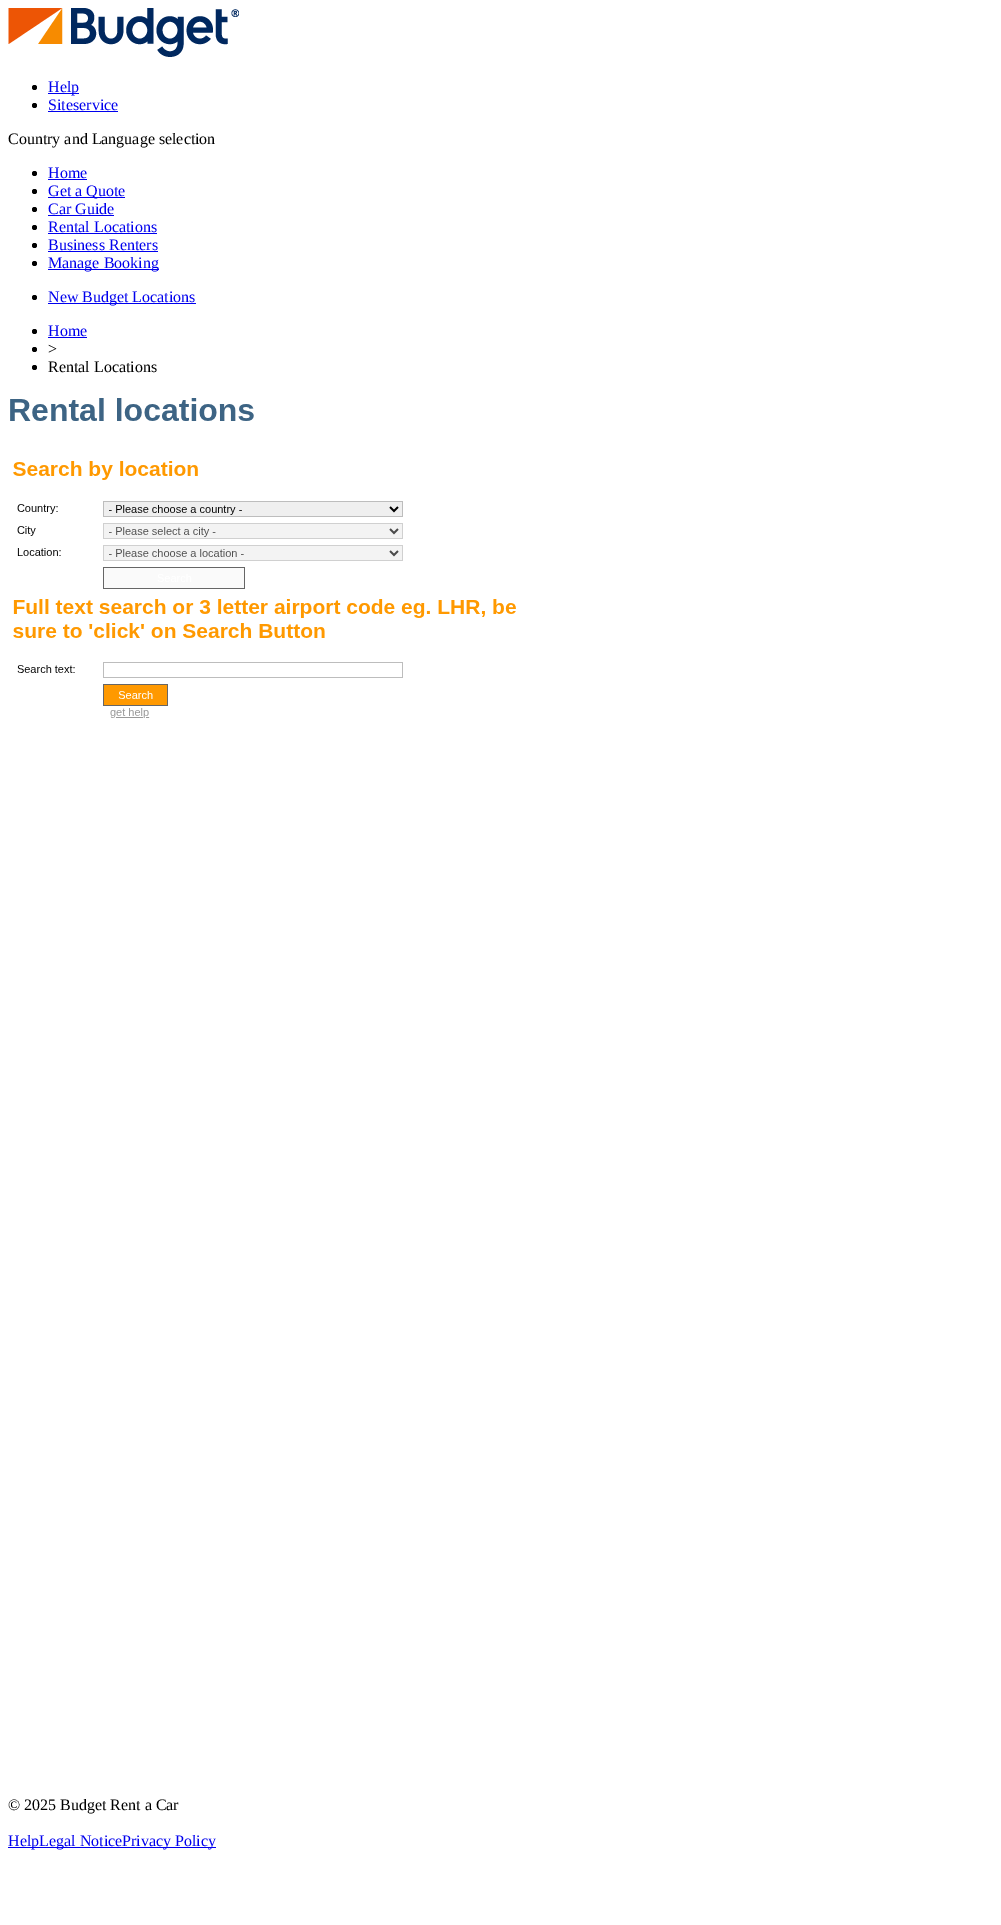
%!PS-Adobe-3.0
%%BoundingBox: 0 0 1001 1925
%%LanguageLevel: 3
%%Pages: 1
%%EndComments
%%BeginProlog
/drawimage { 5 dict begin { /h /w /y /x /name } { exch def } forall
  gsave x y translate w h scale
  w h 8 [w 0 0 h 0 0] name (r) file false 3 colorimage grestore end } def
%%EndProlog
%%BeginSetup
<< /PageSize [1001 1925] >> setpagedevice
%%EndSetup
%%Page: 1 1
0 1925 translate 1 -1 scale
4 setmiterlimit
1 setgray
0 0 1001 1925 rectfill
(images/1.raw) 8 8 231 49 drawimage
0 setgray
newpath 34.5 87.5 2.5 0 360 arc closepath fill
0 0 0.933 setrgbcolor
48 93 31 1 rectfill
0 setgray
newpath 34.5 105.5 2.5 0 360 arc closepath fill
0 0 0.933 setrgbcolor
48 111 70 1 rectfill
0 setgray
newpath 34.5 173.5 2.5 0 360 arc closepath fill
0 0 0.933 setrgbcolor
48 179 39 1 rectfill
0 setgray
newpath 34.5 191.5 2.5 0 360 arc closepath fill
0 0 0.933 setrgbcolor
48 197 77 1 rectfill
0 setgray
newpath 34.5 209.5 2.5 0 360 arc closepath fill
0 0 0.933 setrgbcolor
48 215 66 1 rectfill
0 setgray
newpath 34.5 227.5 2.5 0 360 arc closepath fill
0 0 0.933 setrgbcolor
48 233 109 1 rectfill
0 setgray
newpath 34.5 245.5 2.5 0 360 arc closepath fill
0 0 0.933 setrgbcolor
48 251 110 1 rectfill
0 setgray
newpath 34.5 263.5 2.5 0 360 arc closepath fill
0 0 0.933 setrgbcolor
48 269 111 1 rectfill
0 setgray
newpath 34.5 297.5 2.5 0 360 arc closepath fill
0 0 0.933 setrgbcolor
48 303 148 1 rectfill
0 setgray
newpath 34.5 331.5 2.5 0 360 arc closepath fill
0 0 0.933 setrgbcolor
48 337 39 1 rectfill
0 setgray
newpath 34.5 349.5 2.5 0 360 arc closepath fill
newpath 34.5 367.5 2.5 0 360 arc closepath fill
(images/2.raw) 10 398 506 320 drawimage
0 0 0.933 setrgbcolor
8 1847 208 1 rectfill
/LiberationSerif-Regular [16 0 0 -16 0 0] selectfont
48 92 moveto (Help) show
48 110 moveto (Siteservice) show
0 setgray
8 144 moveto (Country and Language selection) show
0 0 0.933 setrgbcolor
48 178 moveto (Home) show
48 196 moveto (Get a Quote) show
48 214 moveto (Car Guide) show
48 232 moveto (Rental Locations) show
48 250 moveto (Business Renters) show
48 268 moveto (Manage Booking) show
48 302 moveto (New Budget Locations) show
48 336 moveto (Home) show
0 setgray
48 354 moveto (>) show
48 372 moveto (Rental Locations) show
8 1810 moveto (© 2025 Budget Rent a Car) show
0 0 0.933 setrgbcolor
8 1846 moveto (HelpLegal NoticePrivacy Policy) show
showpage
%%EOF
